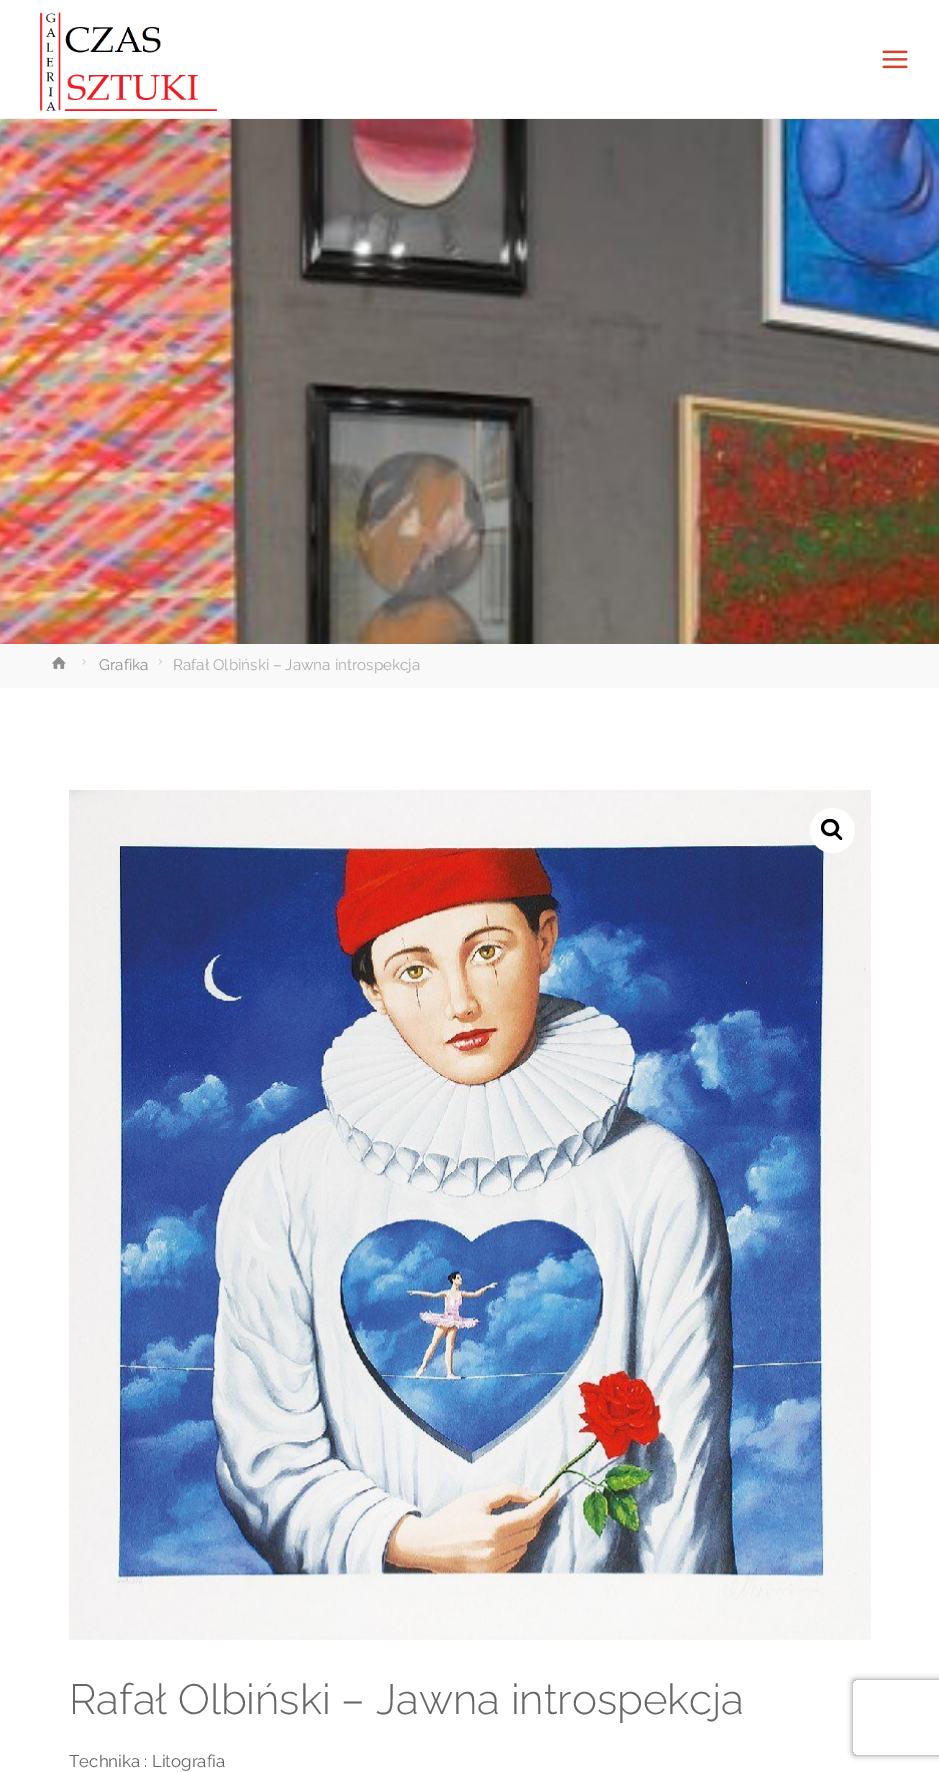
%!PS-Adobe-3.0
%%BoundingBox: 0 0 939 1772
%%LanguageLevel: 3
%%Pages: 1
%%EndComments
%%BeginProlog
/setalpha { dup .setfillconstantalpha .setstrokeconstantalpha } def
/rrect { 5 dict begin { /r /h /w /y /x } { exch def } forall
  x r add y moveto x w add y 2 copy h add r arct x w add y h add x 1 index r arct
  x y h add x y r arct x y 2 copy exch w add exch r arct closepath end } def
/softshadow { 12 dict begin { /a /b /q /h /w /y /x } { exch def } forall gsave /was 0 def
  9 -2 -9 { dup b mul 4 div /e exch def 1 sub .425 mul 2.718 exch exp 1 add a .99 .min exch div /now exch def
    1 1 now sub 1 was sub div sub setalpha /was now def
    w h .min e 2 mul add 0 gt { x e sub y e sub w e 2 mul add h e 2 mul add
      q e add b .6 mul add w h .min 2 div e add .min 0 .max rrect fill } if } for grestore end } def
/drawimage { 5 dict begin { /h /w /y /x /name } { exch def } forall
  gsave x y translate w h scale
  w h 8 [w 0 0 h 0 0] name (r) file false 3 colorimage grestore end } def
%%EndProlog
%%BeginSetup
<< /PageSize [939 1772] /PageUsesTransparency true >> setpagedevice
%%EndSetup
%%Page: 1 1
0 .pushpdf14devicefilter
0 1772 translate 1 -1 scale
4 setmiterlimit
1 setgray
0 0 939 1772 rectfill
0.949 setgray
0 118 939 1 rectfill
(images/1.raw) 40 12 178 99 drawimage
(images/2.raw) 882 50 26 19 drawimage
(images/3.raw) 0 119 939 525 drawimage
0.976 setgray
0 644 939 44 rectfill
(images/4.raw) 52 656 14 13 drawimage
(images/5.raw) 82 659 4 6 drawimage
(images/6.raw) 158 659 4 6 drawimage
(images/7.raw) 69 790 802 850 drawimage
1 setgray
newpath 832.5 830.5 22.5 0 360 arc closepath fill
0 setgray
3 setlinewidth
822.5 820.5 15 14 7 rrect stroke
newpath 834.5 832.5 moveto 836 831 838.5 834.5 839 835 curveto 840 836 843 838 842 839.5 curveto 840.5 841 838 837.5 837.5 837 curveto 836.5 836 833.5 834 834.5 832.5 curveto closepath fill
gsave
newpath 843 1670 moveto 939 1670 lineto 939 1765 lineto 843 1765 lineto closepath 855.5 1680 moveto 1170.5 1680 lineto 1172 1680 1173 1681 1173 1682.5 curveto 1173 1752.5 lineto 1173 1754 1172 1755 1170.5 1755 curveto 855.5 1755 lineto 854 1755 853 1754 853 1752.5 curveto 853 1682.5 lineto 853 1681 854 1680 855.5 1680 curveto closepath eoclip newpath
0.502 setgray
853 1680 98 75 2.5 3 1 softshadow
grestore
/Raleway-Regular [15.25 0 0 -15.25 0 0] selectfont
0.553 setgray
99 670 moveto (Grafika) show
0.671 setgray
173 670 moveto (Rafał Olbiński – Jawna introspekcja) show
/Raleway-Light [42.25 0 0 -42.25 0 0] selectfont
0.4 setgray
69 1714 moveto (Rafał Olbiński – Jawna introspekcja) show
/Raleway-Regular [16.9 0 0 -16.9 0 0] selectfont
69 1767 moveto (Technika : Litografia) show
.poppdf14devicefilter showpage
%%EOF
